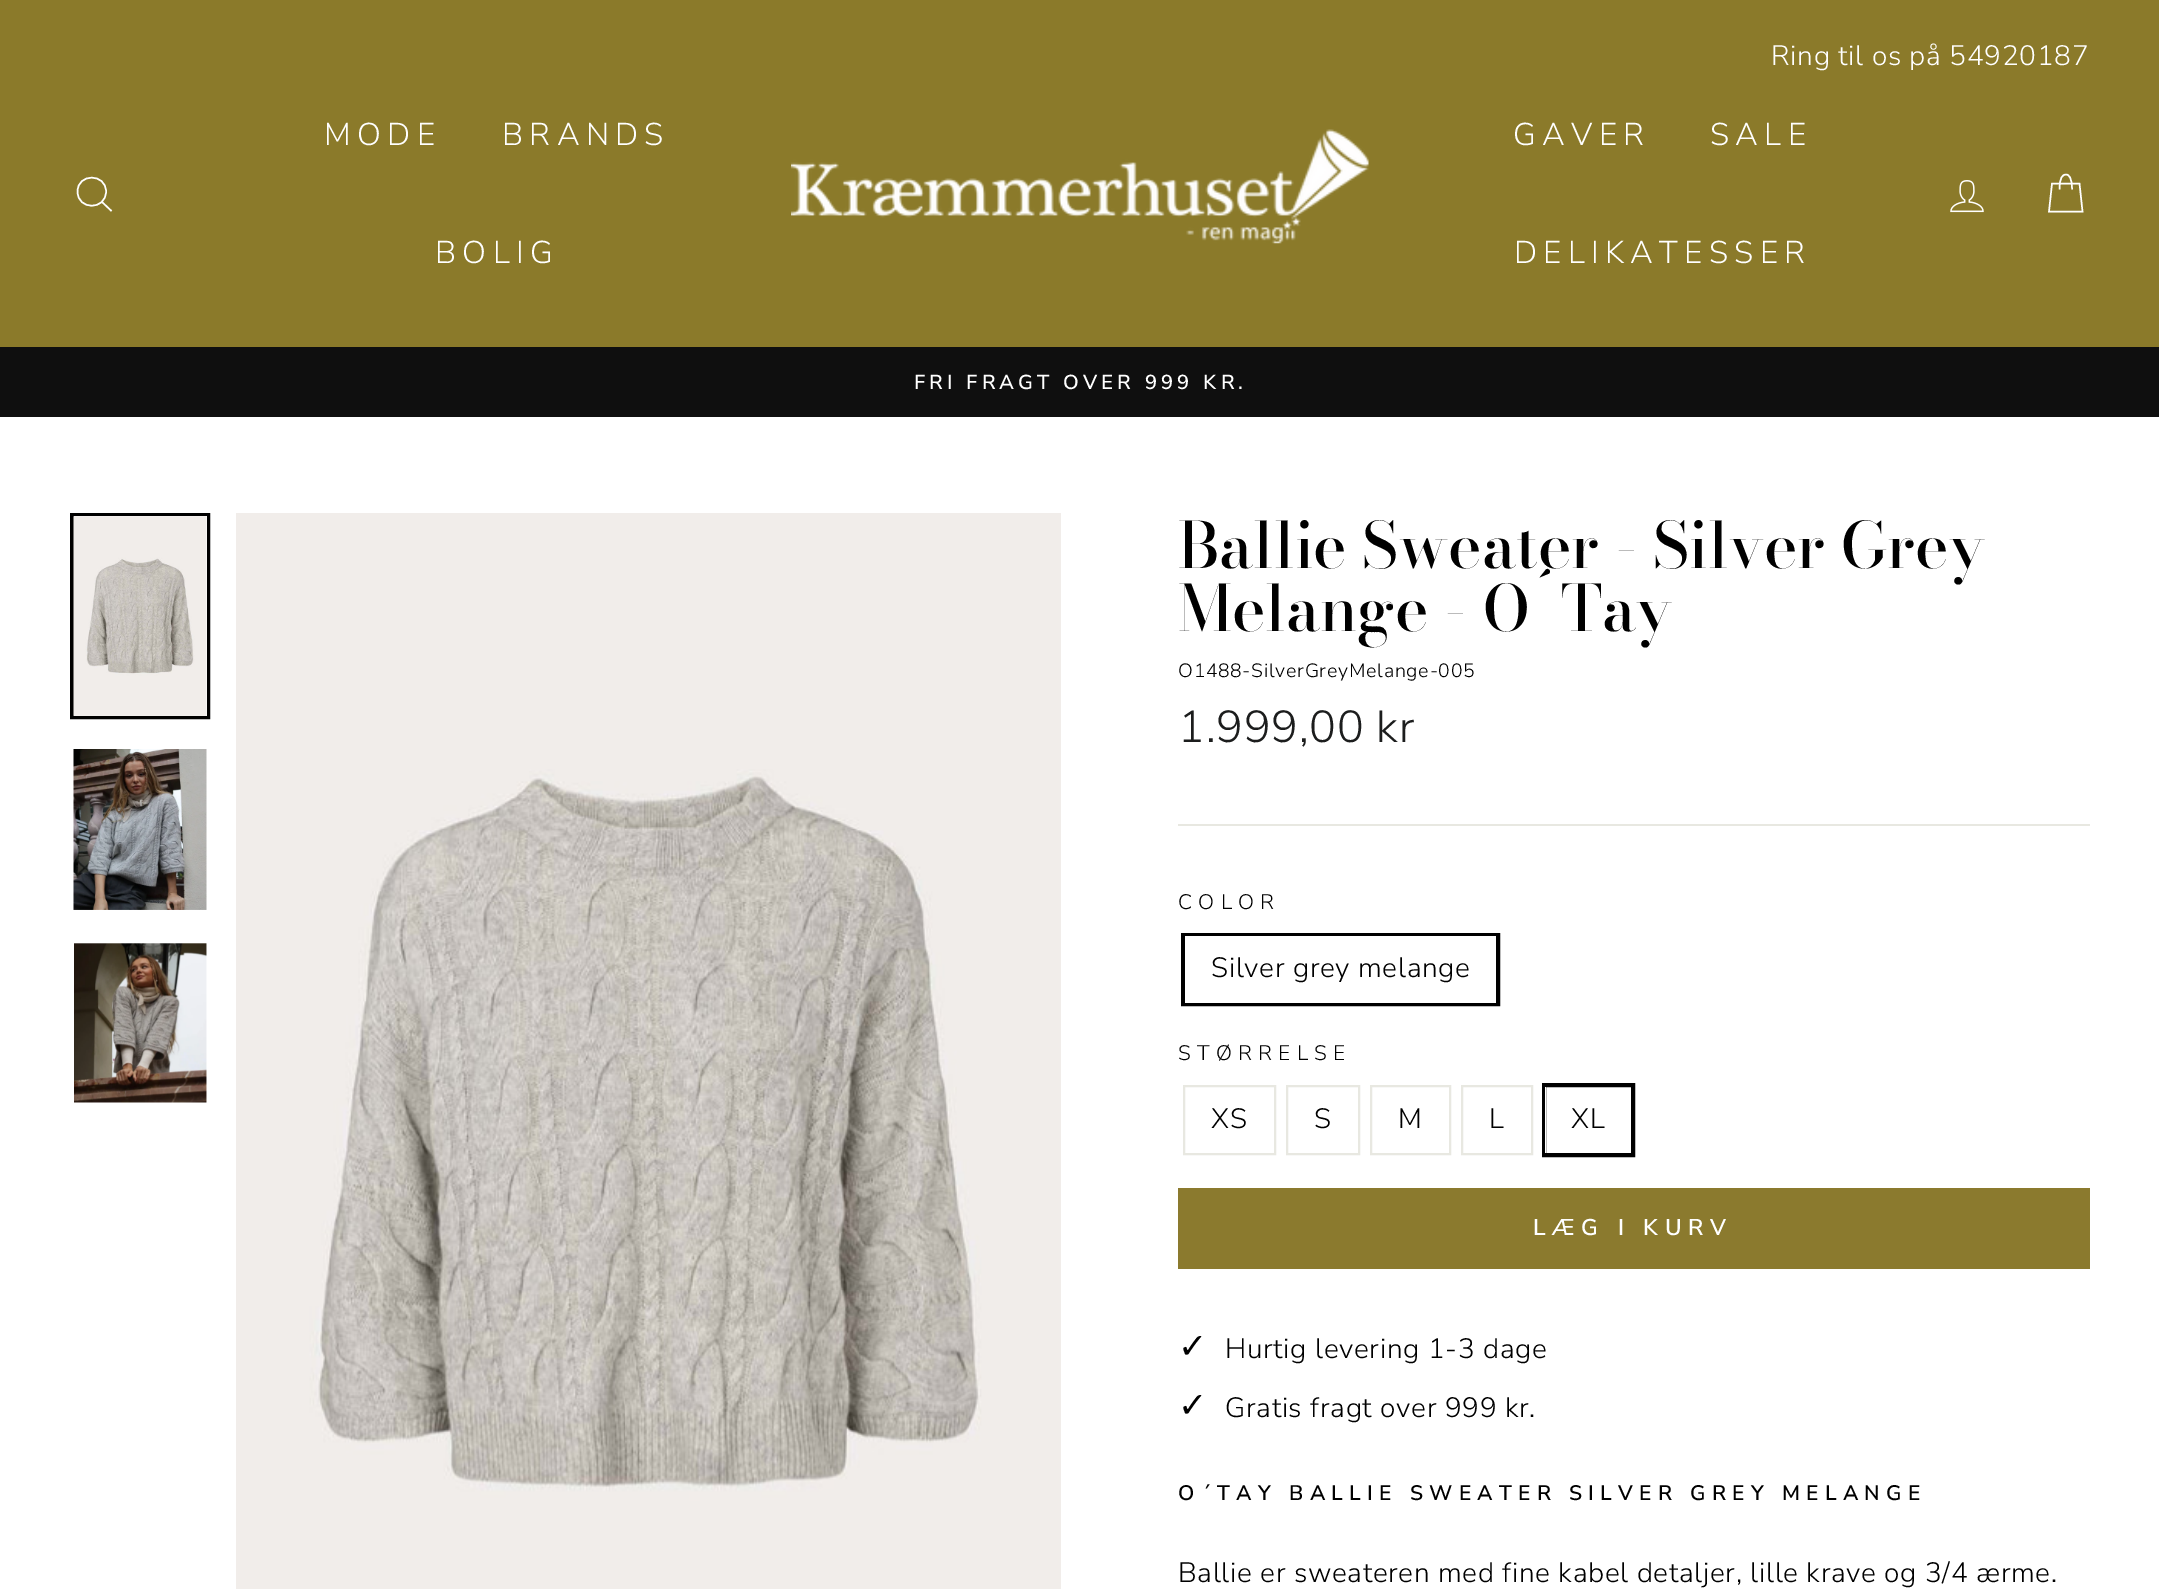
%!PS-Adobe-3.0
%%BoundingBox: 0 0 2159 1589
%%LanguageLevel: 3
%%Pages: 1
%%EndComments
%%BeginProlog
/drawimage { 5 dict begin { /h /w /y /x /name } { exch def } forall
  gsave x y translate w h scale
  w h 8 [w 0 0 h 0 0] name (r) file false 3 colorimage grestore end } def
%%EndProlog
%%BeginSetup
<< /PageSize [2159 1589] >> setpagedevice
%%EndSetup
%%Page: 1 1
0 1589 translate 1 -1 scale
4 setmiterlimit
1 setgray
0 0 2159 1589 rectfill
0.545 0.478 0.165 setrgbcolor
0 0 2159 347 rectfill
1 setgray
1.5 setlinewidth
newpath 106 191.5 moveto 106 210.5 77.5 210.5 77.5 191.5 curveto 77.5 173 106 173 106 191.5 curveto closepath 111.5 211 moveto 102 202 lineto stroke
(images/1.raw) 791 129 578 115 drawimage
(images/2.raw) 1950 180 34 33 drawimage
newpath 2059.5 189.5 moveto 2059.5 177.5 2062.5 174.5 2066 174.5 curveto 2069 174.5 2072 177.5 2072 189.5 curveto 2052 183.5 moveto 2079.5 183.5 lineto 2082.5 211.5 lineto 2049 211.5 lineto closepath stroke
0.059 setgray
0 347 2159 70 rectfill
0 setgray
4 setlinewidth
72 515 136 202 rectstroke
1 setgray
74 516 133 200 rectfill
(images/3.raw) 73 516 134 200 drawimage
(images/4.raw) 73 749 134 161 drawimage
(images/5.raw) 74 943 133 160 drawimage
(images/6.raw) 236 513 825 1076 drawimage
0.91 0.91 0.882 setrgbcolor
1178 824 912 2 rectfill
0 setgray
1183 935 315 69 rectstroke
1 setgray
1185 936 311 67 rectfill
0.91 0.91 0.882 setrgbcolor
2 setlinewidth
1184 1086 91 68 rectstroke
1287 1086 72 68 rectstroke
1371 1086 79 68 rectstroke
1462 1086 70 68 rectstroke
0 setgray
4 setlinewidth
1544 1085 89 70 rectstroke
1 setgray
1545 1087 1 66 rectfill
0.545 0.478 0.18 setrgbcolor
1178 1188 912 81 rectfill
/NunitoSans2-Light [28 0 0 -28 0 0] selectfont
1 setgray
1771 65 moveto 0.7 0 (Ring til os på 54920187) ashow
/NunitoSans2-Light [31.5 0 0 -31.5 0 0] selectfont
324 145 moveto 6.3 0 (MODE) ashow
502 145 moveto 6.3 0 (BRANDS) ashow
435 263 moveto 6.3 0 (BOLIG) ashow
1513 145 moveto 6.3 0 (GAVER) ashow
1710 145 moveto 6.3 0 (SALE) ashow
1514 263 moveto 6.3 0 (DELIKATESSER) ashow
/NunitoSans-SemiBold [20.25 0 0 -20.25 0 0] selectfont
914 389 moveto 0.5 0 32 4.05 0 (FRI FRAGT OVER 999 KR.) awidthshow
/BodoniModa-Medium [63.25 0 0 -63.25 0 0] selectfont
0 setgray
1178 568 moveto (Ballie Sweater - Silver Grey) show
1178 631 moveto (Melange - O´Tay) show
/NunitoSans-Light [19.25 0 0 -19.25 0 0] selectfont
1178 677 moveto 0.7 0 (O1488-SilverGreyMelange-005) ashow
/NunitoSans2-Light [44.75 0 0 -44.75 0 0] selectfont
0.11 0.114 0.114 setrgbcolor
1178 742 moveto 0.7 0 (1.999,00 kr) ashow
/NunitoSans2-Light [21 0 0 -21 0 0] selectfont
0 setgray
1178 909 moveto 6.3 0 (COLOR) ashow
/NunitoSans2-Light [28 0 0 -28 0 0] selectfont
1211 977 moveto 0.7 0 (Silver grey melange) ashow
/NunitoSans2-Light [21 0 0 -21 0 0] selectfont
1178 1060 moveto 6.3 0 (STØRRELSE) ashow
/NunitoSans2-Light [28 0 0 -28 0 0] selectfont
1211 1128 moveto 0.7 0 (XS) ashow
1314 1128 moveto 0.7 0 (S) ashow
1398 1128 moveto 0.7 0 (M) ashow
1489 1128 moveto 0.7 0 (L) ashow
1571 1128 moveto 0.7 0 (XL) ashow
/NunitoSans-SemiBold [22.75 0 0 -22.75 0 0] selectfont
1 setgray
1533 1235 moveto 6.75 0 (LÆG I KURV) ashow
/DejaVuSans-Regular [35 0 0 -35 0 0] selectfont
0 setgray
1178 1358 moveto 0.7 0 (✓) ashow
/NunitoSans2-Light [28 0 0 -28 0 0] selectfont
1225 1358 moveto 0.7 0 (Hurtig levering 1-3 dage) ashow
/DejaVuSans-Regular [35 0 0 -35 0 0] selectfont
1178 1417 moveto 0.7 0 (✓) ashow
/NunitoSans2-Light [28 0 0 -28 0 0] selectfont
1225 1417 moveto 0.7 0 (Gratis fragt over 999 kr.) ashow
/NunitoSans-SemiBold [21 0 0 -21 0 0] selectfont
1178 1500 moveto 6.3 0 (O´TAY BALLIE SWEATER SILVER GREY MELANGE) ashow
/NunitoSans2-Light [28 0 0 -28 0 0] selectfont
1178 1582 moveto 0.7 0 (Ballie er sweateren med fine kabel detaljer, lille krave og 3/4 ærme.) ashow
showpage
%%EOF
